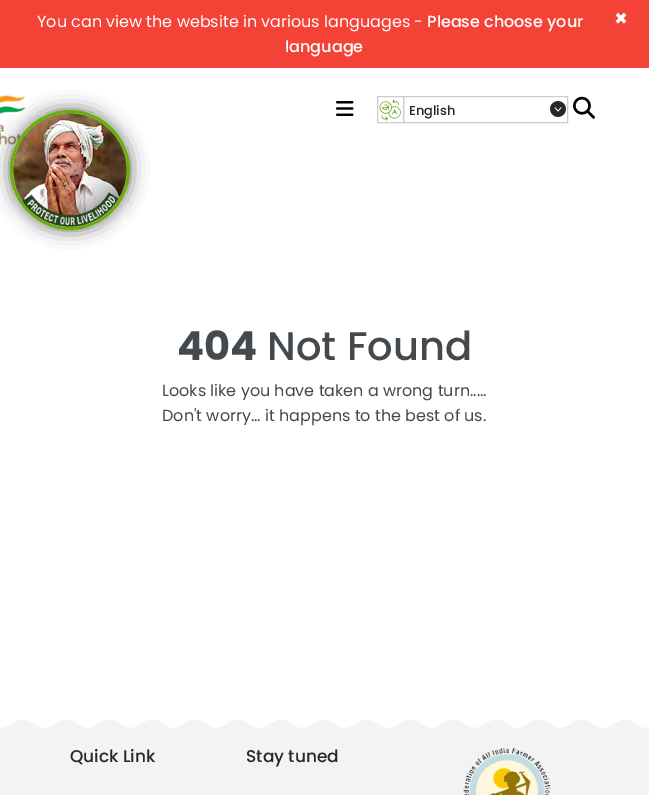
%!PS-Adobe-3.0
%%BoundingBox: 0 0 649 795
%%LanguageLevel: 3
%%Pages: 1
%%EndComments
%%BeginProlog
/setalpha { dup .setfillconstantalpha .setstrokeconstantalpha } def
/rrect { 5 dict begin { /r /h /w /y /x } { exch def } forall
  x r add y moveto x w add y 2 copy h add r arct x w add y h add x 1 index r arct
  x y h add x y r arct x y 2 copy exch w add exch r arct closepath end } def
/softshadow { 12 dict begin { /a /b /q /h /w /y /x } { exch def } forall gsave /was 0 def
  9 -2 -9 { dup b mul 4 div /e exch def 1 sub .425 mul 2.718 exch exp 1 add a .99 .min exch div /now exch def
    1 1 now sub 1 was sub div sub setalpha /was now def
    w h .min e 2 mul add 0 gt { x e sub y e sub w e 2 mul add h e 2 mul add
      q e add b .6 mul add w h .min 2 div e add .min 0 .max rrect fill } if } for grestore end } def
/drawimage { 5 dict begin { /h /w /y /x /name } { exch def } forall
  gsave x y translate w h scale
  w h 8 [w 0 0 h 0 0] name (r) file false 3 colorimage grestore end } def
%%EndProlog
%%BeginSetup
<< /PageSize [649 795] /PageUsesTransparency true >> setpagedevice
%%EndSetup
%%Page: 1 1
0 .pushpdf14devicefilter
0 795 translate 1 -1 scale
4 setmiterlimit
1 setgray
0 0 649 795 rectfill
0.957 0.263 0.212 setrgbcolor
0 0 649 68 rectfill
(images/2.raw) 0 95 26 50 drawimage
0 setgray
10 110 120 120 60 9 0.59 softshadow
0.412 0.686 0.031 setrgbcolor
3 setlinewidth
newpath 70 170 58.5 0 360 arc closepath stroke
(images/1.raw) 13 113 114 114 drawimage
(images/3.raw) 336 101 18 15 drawimage
0.8 setgray
1 setlinewidth
403.5 96.5 164 26 rectstroke
(images/4.raw) 379 99 22 22 drawimage
377.5 96.5 26 26 rectstroke
(images/5.raw) 550 101 16 16 drawimage
(images/6.raw) 573 96 22 23 drawimage
0.953 setgray
0 733 649 62 rectfill
(images/7.raw) 0 720 649 13 drawimage
(images/8.raw) 463 747 88 48 drawimage
/Poppins-Regular [16 0 0 -16 0 0] selectfont
1 setgray
37 27 moveto (You can view the website in various languages -) show
/Poppins-Medium [16 0 0 -16 0 0] selectfont
427 27 moveto (Please choose your) show
/Poppins-Bold [22 0 0 -22 0 0] selectfont
614 26 moveto (×) show
/Poppins-Medium [16 0 0 -16 0 0] selectfont
285 52 moveto (language) show
/Poppins-Medium [13 0 0 -13 0 0] selectfont
0.153 setgray
409 115 moveto (English) show
/Poppins-Bold [40 0 0 -40 0 0] selectfont
0.267 0.286 0.306 setrgbcolor
177 360 moveto (404) show
/Poppins-Medium [40 0 0 -40 0 0] selectfont
267 360 moveto (Not Found) show
/Poppins-Regular [16 0 0 -16 0 0] selectfont
162 396 moveto (Looks like you have taken a wrong turn.....) show
162 421 moveto (Don't worry... it happens to the best of us.) show
/Poppins-Medium [17 0 0 -17 0 0] selectfont
0.153 setgray
70 762 moveto (Quick Link) show
246 762 moveto (Stay tuned) show
.poppdf14devicefilter showpage
%%EOF
